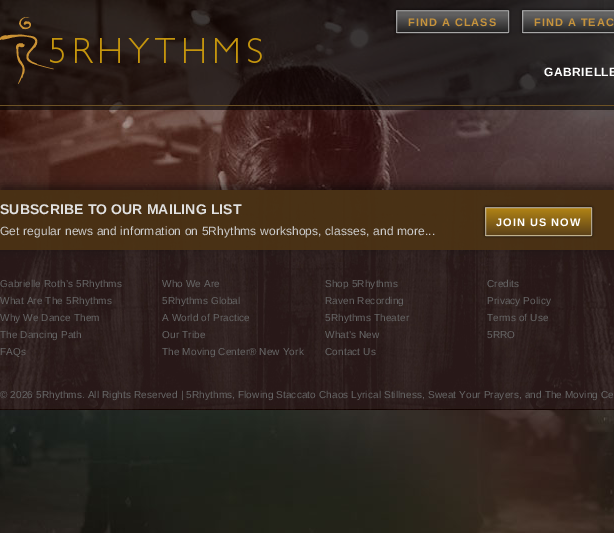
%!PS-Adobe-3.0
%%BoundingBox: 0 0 614 533
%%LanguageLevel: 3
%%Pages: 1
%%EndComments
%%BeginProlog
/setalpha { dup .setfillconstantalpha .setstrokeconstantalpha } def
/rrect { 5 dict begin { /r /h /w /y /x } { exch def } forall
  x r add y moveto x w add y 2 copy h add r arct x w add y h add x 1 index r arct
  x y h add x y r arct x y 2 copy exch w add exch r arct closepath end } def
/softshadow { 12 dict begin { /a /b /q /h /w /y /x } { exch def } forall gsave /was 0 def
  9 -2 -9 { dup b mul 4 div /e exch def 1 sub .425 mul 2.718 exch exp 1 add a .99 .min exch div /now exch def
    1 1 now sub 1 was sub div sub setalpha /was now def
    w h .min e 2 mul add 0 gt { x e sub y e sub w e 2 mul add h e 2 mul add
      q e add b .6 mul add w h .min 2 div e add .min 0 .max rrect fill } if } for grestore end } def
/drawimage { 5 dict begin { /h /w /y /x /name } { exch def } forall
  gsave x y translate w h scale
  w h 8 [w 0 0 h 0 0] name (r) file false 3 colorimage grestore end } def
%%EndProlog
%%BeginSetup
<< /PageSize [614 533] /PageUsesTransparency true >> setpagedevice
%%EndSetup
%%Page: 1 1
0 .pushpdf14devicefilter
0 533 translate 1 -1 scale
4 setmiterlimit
1 setgray
0 0 614 533 rectfill
(images/1.raw) 0 0 614 533 drawimage
0.6 setalpha
0 setgray
0 0 614 110 rectfill
1 setalpha
0.427 0.325 0.149 setrgbcolor
0 105 614 1 rectfill
(images/2.raw) 0 17 262 67 drawimage
gsave
newpath 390 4 moveto 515 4 lineto 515 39 lineto 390 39 lineto closepath 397 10 moveto 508 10 lineto 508.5 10 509 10.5 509 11 curveto 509 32 lineto 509 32.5 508.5 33 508 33 curveto 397 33 lineto 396.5 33 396 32.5 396 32 curveto 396 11 lineto 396 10.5 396.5 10 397 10 curveto closepath eoclip newpath
0 setgray
396 10 113 23 1 1.5 0.7 softshadow
grestore
0.8 setalpha
gsave newpath 397 10 moveto 508 10 lineto 508.5 10 509 10.5 509 11 curveto 396 11 lineto 396 10.5 396.5 10 397 10 curveto closepath clip newpath
<< /ShadingType 2 /ColorSpace /DeviceRGB /Coords [453 -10 453 11] /Extend [true true] /Function << /FunctionType 3 /Domain [0 1] /Functions [<< /FunctionType 2 /Domain [0 1] /C0 [0.439 0.439 0.439] /C1 [0.439 0.439 0.439] /N 1 >> << /FunctionType 2 /Domain [0 1] /C0 [0.439 0.439 0.439] /C1 [0.145 0.145 0.145] /N 1 >>] /Bounds [0.2] /Encode [0 1 0 1] >> >> shfill grestore
gsave newpath 396 11 moveto 509 11 lineto 509 32 lineto 396 32 lineto closepath clip newpath
<< /ShadingType 2 /ColorSpace /DeviceRGB /Coords [453 11 453 32] /Extend [true true] /Function << /FunctionType 3 /Domain [0 1] /Functions [<< /FunctionType 2 /Domain [0 1] /C0 [0.439 0.439 0.439] /C1 [0.439 0.439 0.439] /N 1 >> << /FunctionType 2 /Domain [0 1] /C0 [0.439 0.439 0.439] /C1 [0.145 0.145 0.145] /N 1 >>] /Bounds [0.2] /Encode [0 1 0 1] >> >> shfill grestore
gsave newpath 396 32 moveto 509 32 lineto 509 32.5 508.5 33 508 33 curveto 397 33 lineto 396.5 33 396 32.5 396 32 curveto closepath clip newpath
<< /ShadingType 2 /ColorSpace /DeviceRGB /Coords [453 32 453 53] /Extend [true true] /Function << /FunctionType 3 /Domain [0 1] /Functions [<< /FunctionType 2 /Domain [0 1] /C0 [0.439 0.439 0.439] /C1 [0.439 0.439 0.439] /N 1 >> << /FunctionType 2 /Domain [0 1] /C0 [0.439 0.439 0.439] /C1 [0.145 0.145 0.145] /N 1 >>] /Bounds [0.2] /Encode [0 1 0 1] >> >> shfill grestore
0.65 setalpha
0.8 setgray
396.5 10.5 112 22 0.5 rrect stroke
gsave
newpath 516 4 moveto 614 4 lineto 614 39 lineto 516 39 lineto closepath 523 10 moveto 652 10 lineto 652.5 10 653 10.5 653 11 curveto 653 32 lineto 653 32.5 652.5 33 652 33 curveto 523 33 lineto 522.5 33 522 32.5 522 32 curveto 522 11 lineto 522 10.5 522.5 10 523 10 curveto closepath eoclip newpath
1 setalpha
0 setgray
522 10 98 23 1 1.5 0.7 softshadow
grestore
0.8 setalpha
gsave newpath 523 10 moveto 614 10 lineto 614.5 10 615 10.5 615 11 curveto 522 11 lineto 522 10.5 522.5 10 523 10 curveto closepath clip newpath
<< /ShadingType 2 /ColorSpace /DeviceRGB /Coords [588 -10 588 11] /Extend [true true] /Function << /FunctionType 3 /Domain [0 1] /Functions [<< /FunctionType 2 /Domain [0 1] /C0 [0.439 0.439 0.439] /C1 [0.439 0.439 0.439] /N 1 >> << /FunctionType 2 /Domain [0 1] /C0 [0.439 0.439 0.439] /C1 [0.145 0.145 0.145] /N 1 >>] /Bounds [0.2] /Encode [0 1 0 1] >> >> shfill grestore
gsave newpath 522 11 moveto 614 11 lineto 614 32 lineto 522 32 lineto closepath clip newpath
<< /ShadingType 2 /ColorSpace /DeviceRGB /Coords [588 11 588 32] /Extend [true true] /Function << /FunctionType 3 /Domain [0 1] /Functions [<< /FunctionType 2 /Domain [0 1] /C0 [0.439 0.439 0.439] /C1 [0.439 0.439 0.439] /N 1 >> << /FunctionType 2 /Domain [0 1] /C0 [0.439 0.439 0.439] /C1 [0.145 0.145 0.145] /N 1 >>] /Bounds [0.2] /Encode [0 1 0 1] >> >> shfill grestore
gsave newpath 522 32 moveto 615 32 lineto 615 32.5 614.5 33 614 33 curveto 523 33 lineto 522.5 33 522 32.5 522 32 curveto closepath clip newpath
<< /ShadingType 2 /ColorSpace /DeviceRGB /Coords [588 32 588 53] /Extend [true true] /Function << /FunctionType 3 /Domain [0 1] /Functions [<< /FunctionType 2 /Domain [0 1] /C0 [0.439 0.439 0.439] /C1 [0.439 0.439 0.439] /N 1 >> << /FunctionType 2 /Domain [0 1] /C0 [0.439 0.439 0.439] /C1 [0.145 0.145 0.145] /N 1 >>] /Bounds [0.2] /Encode [0 1 0 1] >> >> shfill grestore
0.65 setalpha
522.5 10.5 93 22 0.5 rrect stroke
1 setalpha
(images/3.raw) 0 190 614 220 drawimage
gsave
newpath 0 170 moveto 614 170 lineto 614 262 lineto 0 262 lineto closepath 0 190 moveto 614 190 lineto 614 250 lineto 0 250 lineto closepath eoclip newpath
0 setgray
0 186 614 60 0 5 0.5 softshadow
grestore
0.93 setalpha
0.294 0.196 0.078 setrgbcolor
0 190 614 60 rectfill
1 setalpha
0 setgray
485 207 107 29 1 1.5 0.7 softshadow
0.8 setalpha
gsave newpath 486 207 moveto 591 207 lineto 591.5 207 592 207.5 592 208 curveto 485 208 lineto 485 207.5 485.5 207 486 207 curveto closepath clip newpath
<< /ShadingType 2 /ColorSpace /DeviceRGB /Coords [539 181 539 208] /Extend [true true] /Function << /FunctionType 2 /Domain [0 1] /C0 [0.8 0.6 0.082] /C1 [0.384 0.275 0.102] /N 1 >> >> shfill grestore
1 setalpha
gsave newpath 485 208 moveto 592 208 lineto 592 235 lineto 485 235 lineto closepath clip newpath
<< /ShadingType 2 /ColorSpace /DeviceRGB /Coords [539 208 539 235] /Extend [true true] /Function << /FunctionType 2 /Domain [0 1] /C0 [0.698 0.518 0.082] /C1 [0.365 0.259 0.098] /N 1 >> >> shfill grestore
0.8 setalpha
gsave newpath 485 235 moveto 592 235 lineto 592 235.5 591.5 236 591 236 curveto 486 236 lineto 485.5 236 485 235.5 485 235 curveto closepath clip newpath
<< /ShadingType 2 /ColorSpace /DeviceRGB /Coords [539 235 539 262] /Extend [true true] /Function << /FunctionType 2 /Domain [0 1] /C0 [0.8 0.6 0.082] /C1 [0.384 0.275 0.102] /N 1 >> >> shfill grestore
0.65 setalpha
0.8 setgray
485.5 207.5 106 28 0.5 rrect stroke
/LiberationSans-Bold [11 0 0 -11 0 0] selectfont
1 setalpha
0.776 0.576 0.235 setrgbcolor
408 26 moveto 1 0 (FIND A CLASS) ashow
534 26 moveto 1 0 (FIND A TEAC) ashow
/LiberationSans-Bold [12 0 0 -12 0 0] selectfont
1 setgray
544 76 moveto 0.5 0 (GABRIELLE) ashow
/LiberationSans-Bold [14 0 0 -14 0 0] selectfont
0.882 setgray
0 214 moveto 0.12 0 (SUBSCRIBE TO OUR MAILING LIST) ashow
/LiberationSans-Regular [12 0 0 -12 0 0] selectfont
0.8 setgray
0 235 moveto 0.12 0 (Get regular news and information on 5Rhythms workshops, classes, and more...) ashow
/LiberationSans-Bold [11 0 0 -11 0 0] selectfont
1 setgray
496 226 moveto 1 0 (JOIN US NOW) ashow
/LiberationSans-Regular [10 0 0 -10 0 0] selectfont
0.4 setgray
0 287 moveto 0.12 0 (Gabrielle Roth’s 5Rhythms) ashow
0 304 moveto 0.12 0 (What Are The 5Rhythms) ashow
0 321 moveto 0.12 0 (Why We Dance Them) ashow
0 338 moveto 0.12 0 (The Dancing Path) ashow
0 355 moveto 0.12 0 (FAQs) ashow
162 287 moveto 0.12 0 (Who We Are) ashow
162 304 moveto 0.12 0 (5Rhythms Global) ashow
162 321 moveto 0.12 0 (A World of Practice) ashow
162 338 moveto 0.12 0 (Our Tribe) ashow
162 355 moveto 0.12 0 (The Moving Center® New York) ashow
325 287 moveto 0.12 0 (Shop 5Rhythms) ashow
325 304 moveto 0.12 0 (Raven Recording) ashow
325 321 moveto 0.12 0 (5Rhythms Theater) ashow
325 338 moveto 0.12 0 (What’s New) ashow
325 355 moveto 0.12 0 (Contact Us) ashow
487 287 moveto 0.12 0 (Credits) ashow
487 304 moveto 0.12 0 (Privacy Policy) ashow
487 321 moveto 0.12 0 (Terms of Use) ashow
487 338 moveto 0.12 0 (5RRO) ashow
0 398 moveto 0.12 0 (© 2026 5Rhythms. All Rights Reserved | 5Rhythms, Flowing Staccato Chaos Lyrical Stillness, Sweat Your Prayers, and The Moving Ce) ashow
.poppdf14devicefilter showpage
%%EOF
